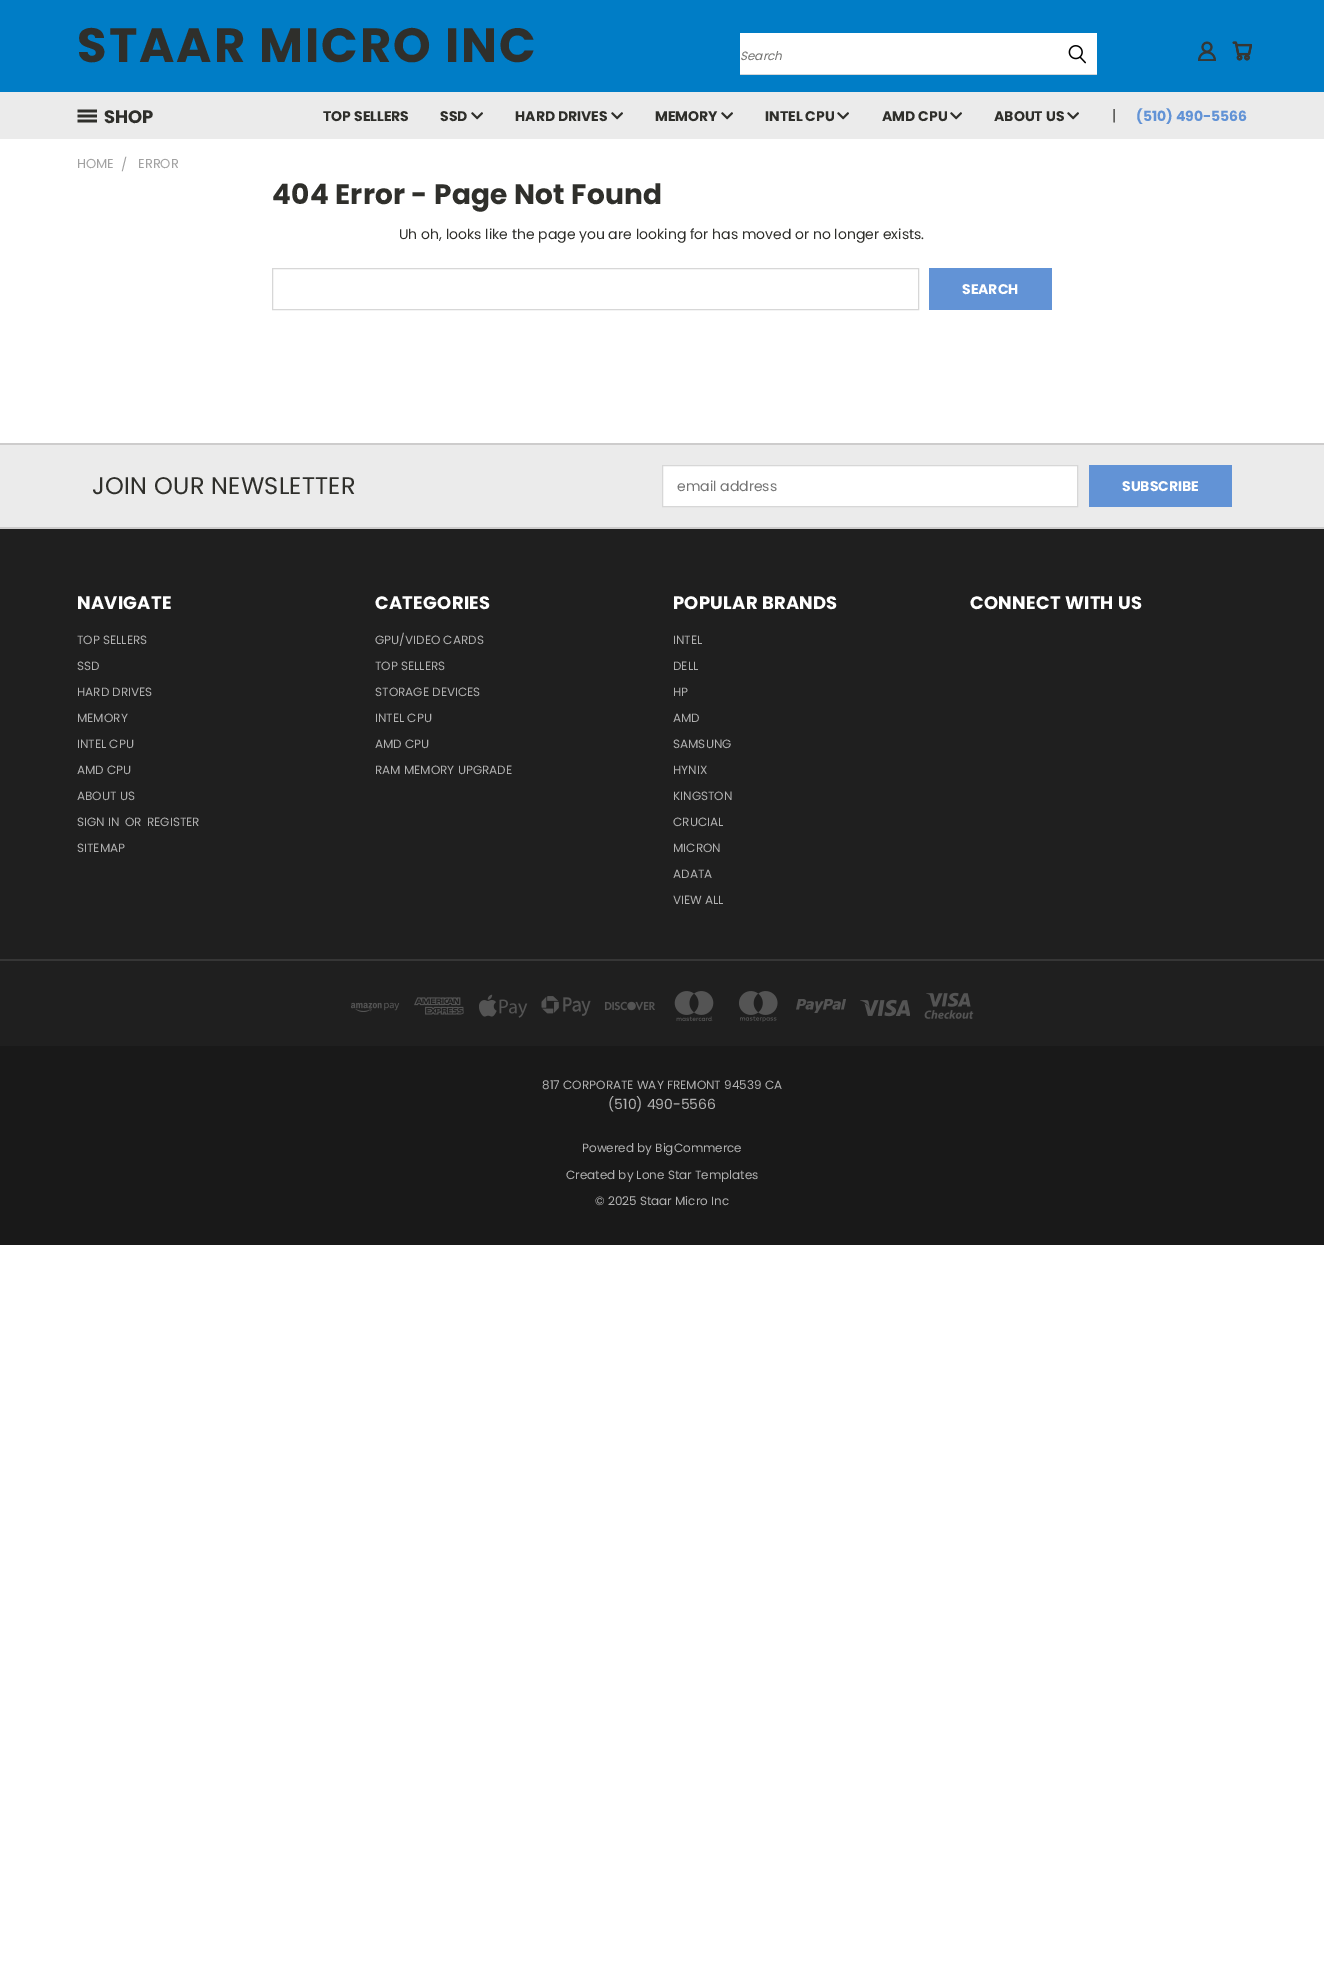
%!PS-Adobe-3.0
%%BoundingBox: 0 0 1324 1968
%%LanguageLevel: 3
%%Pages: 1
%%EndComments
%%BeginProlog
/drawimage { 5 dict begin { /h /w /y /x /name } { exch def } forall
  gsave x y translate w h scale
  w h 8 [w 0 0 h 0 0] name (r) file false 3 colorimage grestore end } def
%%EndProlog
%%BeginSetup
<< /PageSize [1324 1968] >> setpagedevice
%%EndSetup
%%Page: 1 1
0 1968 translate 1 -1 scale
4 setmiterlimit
1 setgray
0 0 1324 1968 rectfill
0 0.49 0.776 setrgbcolor
0 0 1324 92 rectfill
1 setgray
740 33 357 41 rectfill
0.843 setgray
740 74 357 1 rectfill
(images/1.raw) 1068 45 18 19 drawimage
(images/2.raw) 1198 41 18 20 drawimage
(images/3.raw) 1232 41 20 20 drawimage
0.922 setgray
0 92 1324 47 rectfill
(images/4.raw) 77 109 20 14 drawimage
(images/5.raw) 471 112 12 8 drawimage
(images/5.raw) 611 112 12 8 drawimage
(images/5.raw) 721 112 12 8 drawimage
(images/5.raw) 837 112 12 8 drawimage
(images/5.raw) 950 112 12 8 drawimage
(images/5.raw) 1067 112 12 8 drawimage
0.843 setgray
272.5 268.5 646 41 rectstroke
0.384 0.576 0.839 setrgbcolor
929 268 123 42 rectfill
0.922 setgray
0 445 1324 82 rectfill
0.804 0.8 0.8 setrgbcolor
0 443 1324 2 rectfill
1 setgray
newpath 662.5 465.5 moveto 1077.5 465.5 lineto 1077.5 506.5 lineto 662.5 506.5 lineto closepath gsave fill grestore
0.843 setgray
stroke
0.384 0.576 0.839 setrgbcolor
1089 465 143 42 rectfill
0.122 setgray
0 529 1324 517 rectfill
0.804 0.8 0.8 setrgbcolor
0 527 1324 2 rectfill
0.212 setgray
0 959 1324 2 rectfill
(images/6.raw) 351 1002 49 10 drawimage
(images/7.raw) 414 997 50 18 drawimage
(images/8.raw) 479 994 49 24 drawimage
(images/9.raw) 541 996 50 20 drawimage
(images/10.raw) 605 1001 50 10 drawimage
(images/11.raw) 674 991 40 30 drawimage
(images/12.raw) 739 991 39 31 drawimage
(images/13.raw) 796 999 50 14 drawimage
(images/14.raw) 860 999 50 18 drawimage
(images/15.raw) 924 992 50 27 drawimage
0.098 setgray
0 1046 1324 199 rectfill
/Poppins-Bold [48 0 0 -48 0 0] selectfont
0.184 0.184 0.169 setrgbcolor
77 62 moveto 2 0 (STAAR MICRO INC) ashow
/Poppins-Italic [12 0 0 -12 0 0] selectfont
0.439 0.439 0.431 setrgbcolor
740 60 moveto (Search) show
/Poppins-Bold [18 0 0 -18 0 0] selectfont
0.184 0.184 0.169 setrgbcolor
104 123 moveto (SHOP) show
/Poppins-Bold [14 0 0 -14 0 0] selectfont
323 121 moveto (TOP SELLERS) show
440 121 moveto (SSD) show
515 121 moveto (HARD DRIVES) show
655 121 moveto (MEMORY) show
765 121 moveto (INTEL CPU) show
882 121 moveto (AMD CPU) show
994 121 moveto (ABOUT US) show
/Poppins-Regular [15 0 0 -15 0 0] selectfont
1112 121 moveto (|) show
/Poppins-Bold [14 0 0 -14 0 0] selectfont
0.384 0.576 0.839 setrgbcolor
1136 121 moveto (\(510\) 490-5566) show
/Poppins-Regular [13 0 0 -13 0 0] selectfont
0.635 setgray
77 168 moveto (HOME) show
121 169 moveto (/) show
138 168 moveto (ERROR) show
/Poppins-Bold [28 0 0 -28 0 0] selectfont
0.184 0.184 0.169 setrgbcolor
272 204 moveto 0.25 0 (404 Error - Page Not Found) ashow
/Poppins-Regular [14 0 0 -14 0 0] selectfont
399 239 moveto (Uh oh, looks like the page you are looking for has moved or no longer exists.) show
/Poppins-Bold [14 0 0 -14 0 0] selectfont
1 setgray
962 294 moveto (SEARCH) show
/Poppins-Regular [24 0 0 -24 0 0] selectfont
0.184 0.184 0.169 setrgbcolor
92 494 moveto 0.25 0 (JOIN OUR NEWSLETTER) ashow
/Poppins-Regular [14 0 0 -14 0 0] selectfont
0.459 setgray
677 491 moveto (email address) show
/Poppins-Bold [14 0 0 -14 0 0] selectfont
1 setgray
1122 491 moveto (SUBSCRIBE) show
/Poppins-Bold [18 0 0 -18 0 0] selectfont
77 609 moveto 0.25 0 (NAVIGATE) ashow
/Poppins-Regular [12 0 0 -12 0 0] selectfont
0.698 setgray
77 644 moveto (TOP SELLERS) show
77 670 moveto (SSD) show
77 696 moveto (HARD DRIVES) show
77 722 moveto (MEMORY) show
77 748 moveto (INTEL CPU) show
77 774 moveto (AMD CPU) show
77 800 moveto (ABOUT US) show
77 826 moveto (SIGN IN) show
125 826 moveto (OR) show
147 826 moveto (REGISTER) show
77 852 moveto (SITEMAP) show
/Poppins-Bold [18 0 0 -18 0 0] selectfont
1 setgray
375 609 moveto 0.25 0 (CATEGORIES) ashow
/Poppins-Regular [12 0 0 -12 0 0] selectfont
0.698 setgray
375 644 moveto (GPU/VIDEO CARDS) show
375 670 moveto (TOP SELLERS) show
375 696 moveto (STORAGE DEVICES) show
375 722 moveto (INTEL CPU) show
375 748 moveto (AMD CPU) show
375 774 moveto (RAM MEMORY UPGRADE) show
/Poppins-Bold [18 0 0 -18 0 0] selectfont
1 setgray
673 609 moveto 0.25 0 (POPULAR BRANDS) ashow
/Poppins-Regular [12 0 0 -12 0 0] selectfont
0.698 setgray
673 644 moveto (INTEL) show
673 670 moveto (DELL) show
673 696 moveto (HP) show
673 722 moveto (AMD) show
673 748 moveto (SAMSUNG) show
673 774 moveto (HYNIX) show
673 800 moveto (KINGSTON) show
673 826 moveto (CRUCIAL) show
673 852 moveto (MICRON) show
673 878 moveto (ADATA) show
673 904 moveto (VIEW ALL) show
/Poppins-Bold [18 0 0 -18 0 0] selectfont
1 setgray
970 609 moveto 0.25 0 (CONNECT WITH US) ashow
/Poppins-Regular [12 0 0 -12 0 0] selectfont
0.698 setgray
542 1089 moveto (817 CORPORATE WAY FREMONT 94539 CA) show
/Poppins-Regular [14 0 0 -14 0 0] selectfont
608 1109 moveto (\(510\) 490-5566) show
/Poppins-Regular [12 0 0 -12 0 0] selectfont
582 1152 moveto (Powered by BigCommerce) show
566 1179 moveto (Created by Lone Star Templates) show
595 1205 moveto (© 2025 Staar Micro Inc) show
showpage
%%EOF
